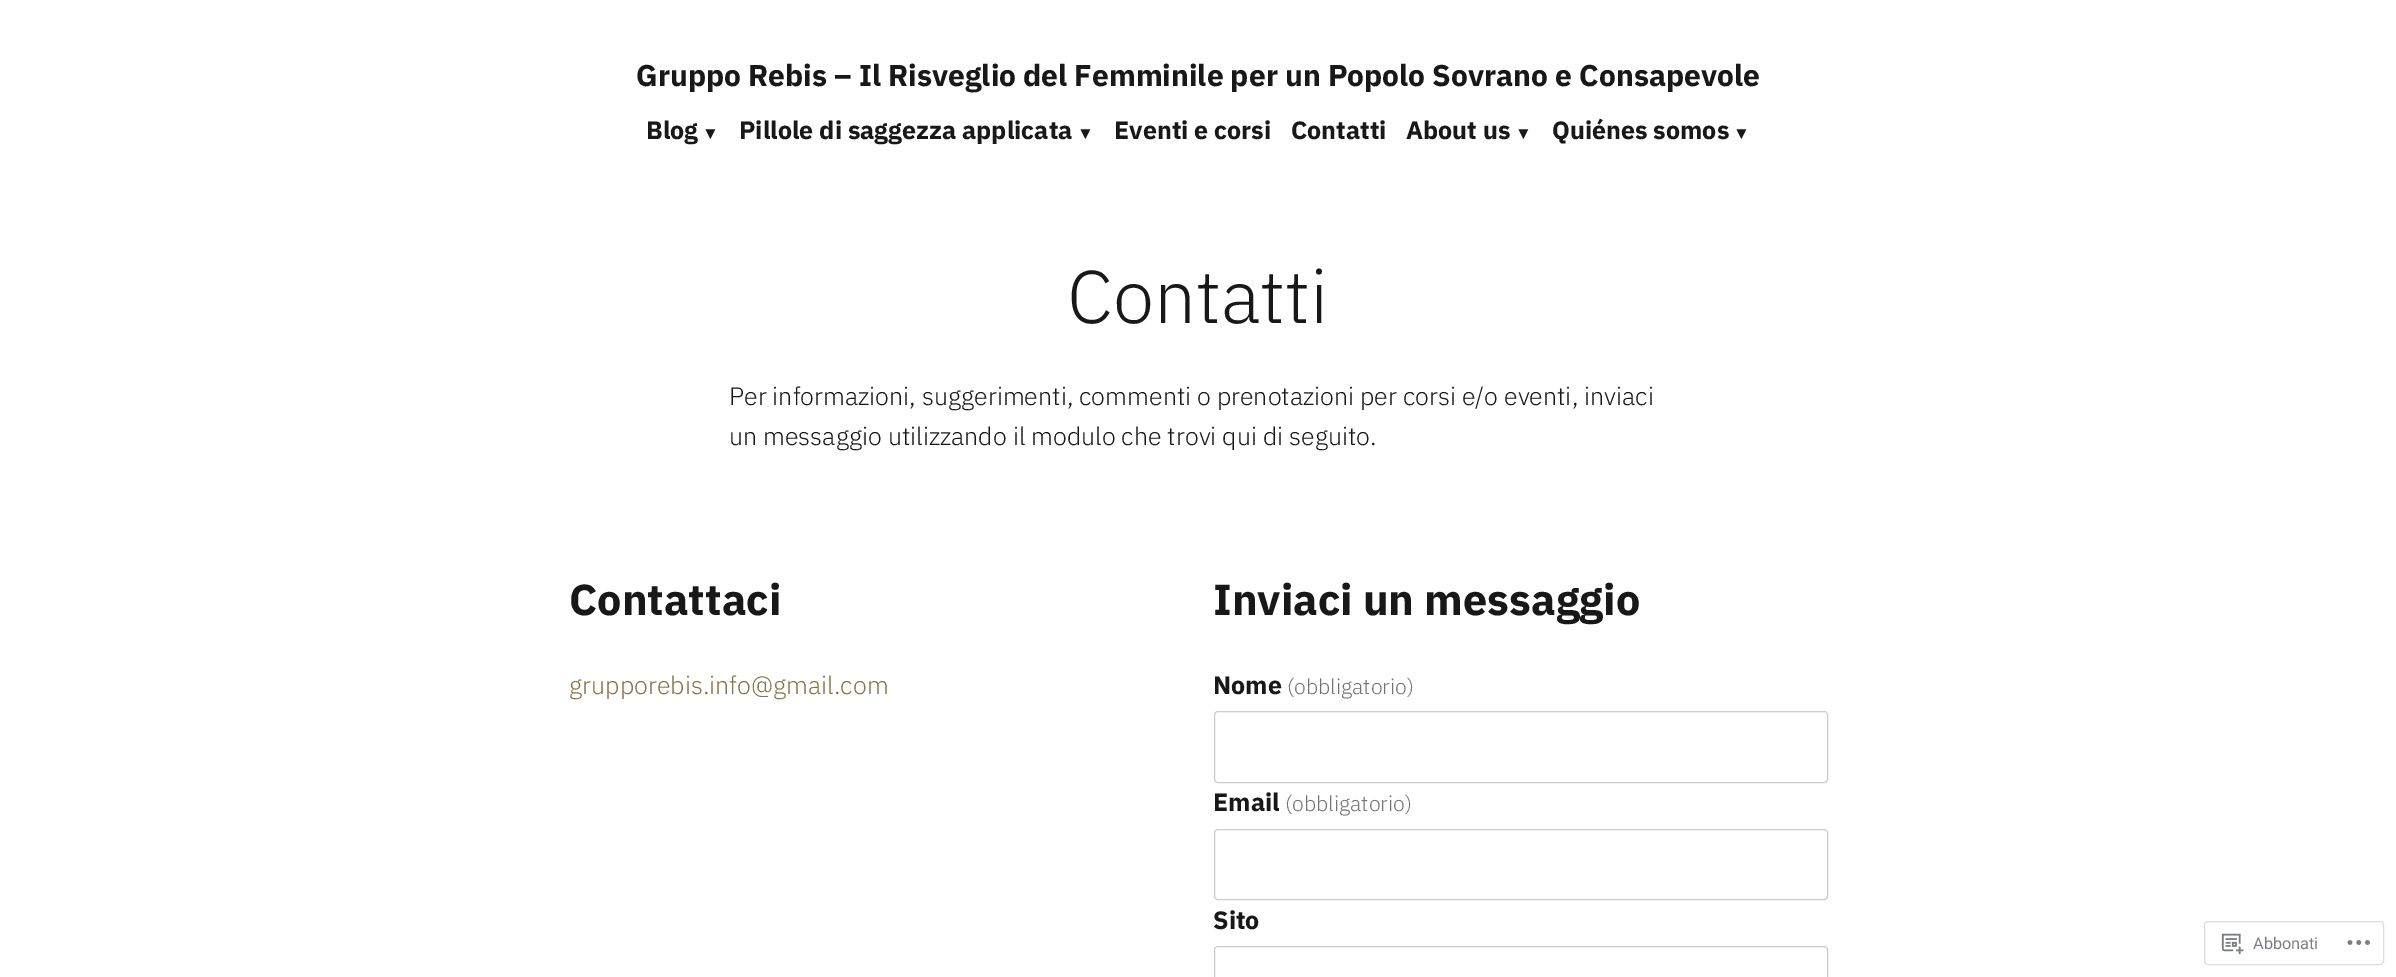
%!PS-Adobe-3.0
%%BoundingBox: 0 0 2396 977
%%LanguageLevel: 3
%%Pages: 1
%%EndComments
%%BeginProlog
/rrect { 5 dict begin { /r /h /w /y /x } { exch def } forall
  x r add y moveto x w add y 2 copy h add r arct x w add y h add x 1 index r arct
  x y h add x y r arct x y 2 copy exch w add exch r arct closepath end } def
/drawimage { 5 dict begin { /h /w /y /x /name } { exch def } forall
  gsave x y translate w h scale
  w h 8 [w 0 0 h 0 0] name (r) file false 3 colorimage grestore end } def
%%EndProlog
%%BeginSetup
<< /PageSize [2396 977] >> setpagedevice
%%EndSetup
%%Page: 1 1
0 977 translate 1 -1 scale
4 setmiterlimit
1 setgray
0 0 2396 977 rectfill
0.8 setgray
1214.5 711.5 613 71 3.5 rrect stroke
1214.5 829.5 613 70 3.5 rrect stroke
1214.5 946.5 613 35 3.5 rrect stroke
0.867 0.867 0.875 setrgbcolor
2204.5 921.5 179 43 3.5 rrect stroke
(images/1.raw) 2221 933 23 22 drawimage
(images/2.raw) 2347 940 23 5 drawimage
/IBMPlexSans-Bold [30 0 0 -30 0 0] selectfont
0.094 setgray
636 86 moveto (Gruppo Rebis – Il Risveglio del Femminile per un Popolo Sovrano e Consapevole) show
/IBMPlexSans-Bold [25 0 0 -25 0 0] selectfont
646 139 moveto (Blog) show
/LiberationSans-Bold [17 0 0 -17 0 0] selectfont
702 139 moveto (▼) show
/IBMPlexSans-Bold [25 0 0 -25 0 0] selectfont
739 139 moveto (Pillole di saggezza applicata) show
/LiberationSans-Bold [17 0 0 -17 0 0] selectfont
1077 139 moveto (▼) show
/IBMPlexSans-Bold [25 0 0 -25 0 0] selectfont
1114 139 moveto (Eventi e corsi) show
1291 139 moveto (Contatti) show
1406 139 moveto (About us) show
/LiberationSans-Bold [17 0 0 -17 0 0] selectfont
1515 139 moveto (▼) show
/IBMPlexSans-Bold [25 0 0 -25 0 0] selectfont
1552 139 moveto (Quiénes somos) show
/LiberationSans-Bold [17 0 0 -17 0 0] selectfont
1733 139 moveto (▼) show
/IBMPlexSans-Light [74.5 0 0 -74.5 0 0] selectfont
1067 323 moveto (Contatti) show
/IBMPlexSans-Light [25 0 0 -25 0 0] selectfont
729 405 moveto (Per informazioni, suggerimenti, commenti o prenotazioni per corsi e/o eventi, inviaci) show
729 445 moveto (un messaggio utilizzando il modulo che trovi qui di seguito.) show
/IBMPlexSans-Bold [43.25 0 0 -43.25 0 0] selectfont
569 615 moveto (Contattaci) show
/IBMPlexSans-Light [25 0 0 -25 0 0] selectfont
0.537 0.447 0.282 setrgbcolor
569 694 moveto (grupporebis.info@gmail.com) show
/IBMPlexSans-Bold [43.25 0 0 -43.25 0 0] selectfont
0.094 setgray
1213 615 moveto (Inviaci un messaggio) show
/IBMPlexSans-Bold [25 0 0 -25 0 0] selectfont
1213 694 moveto (Nome) show
/IBMPlexSans-Light [21.25 0 0 -21.25 0 0] selectfont
0.455 setgray
1287 694 moveto (\(obbligatorio\)) show
/IBMPlexSans-Bold [25 0 0 -25 0 0] selectfont
0.094 setgray
1213 811 moveto (Email) show
/IBMPlexSans-Light [21.25 0 0 -21.25 0 0] selectfont
0.455 setgray
1285 811 moveto (\(obbligatorio\)) show
/IBMPlexSans-Bold [25 0 0 -25 0 0] selectfont
0.094 setgray
1213 929 moveto (Sito) show
/Roboto-Regular [16.25 0 0 -16.25 0 0] selectfont
0.482 0.498 0.522 setrgbcolor
2253 949 moveto (Abbonati) show
showpage
%%EOF
